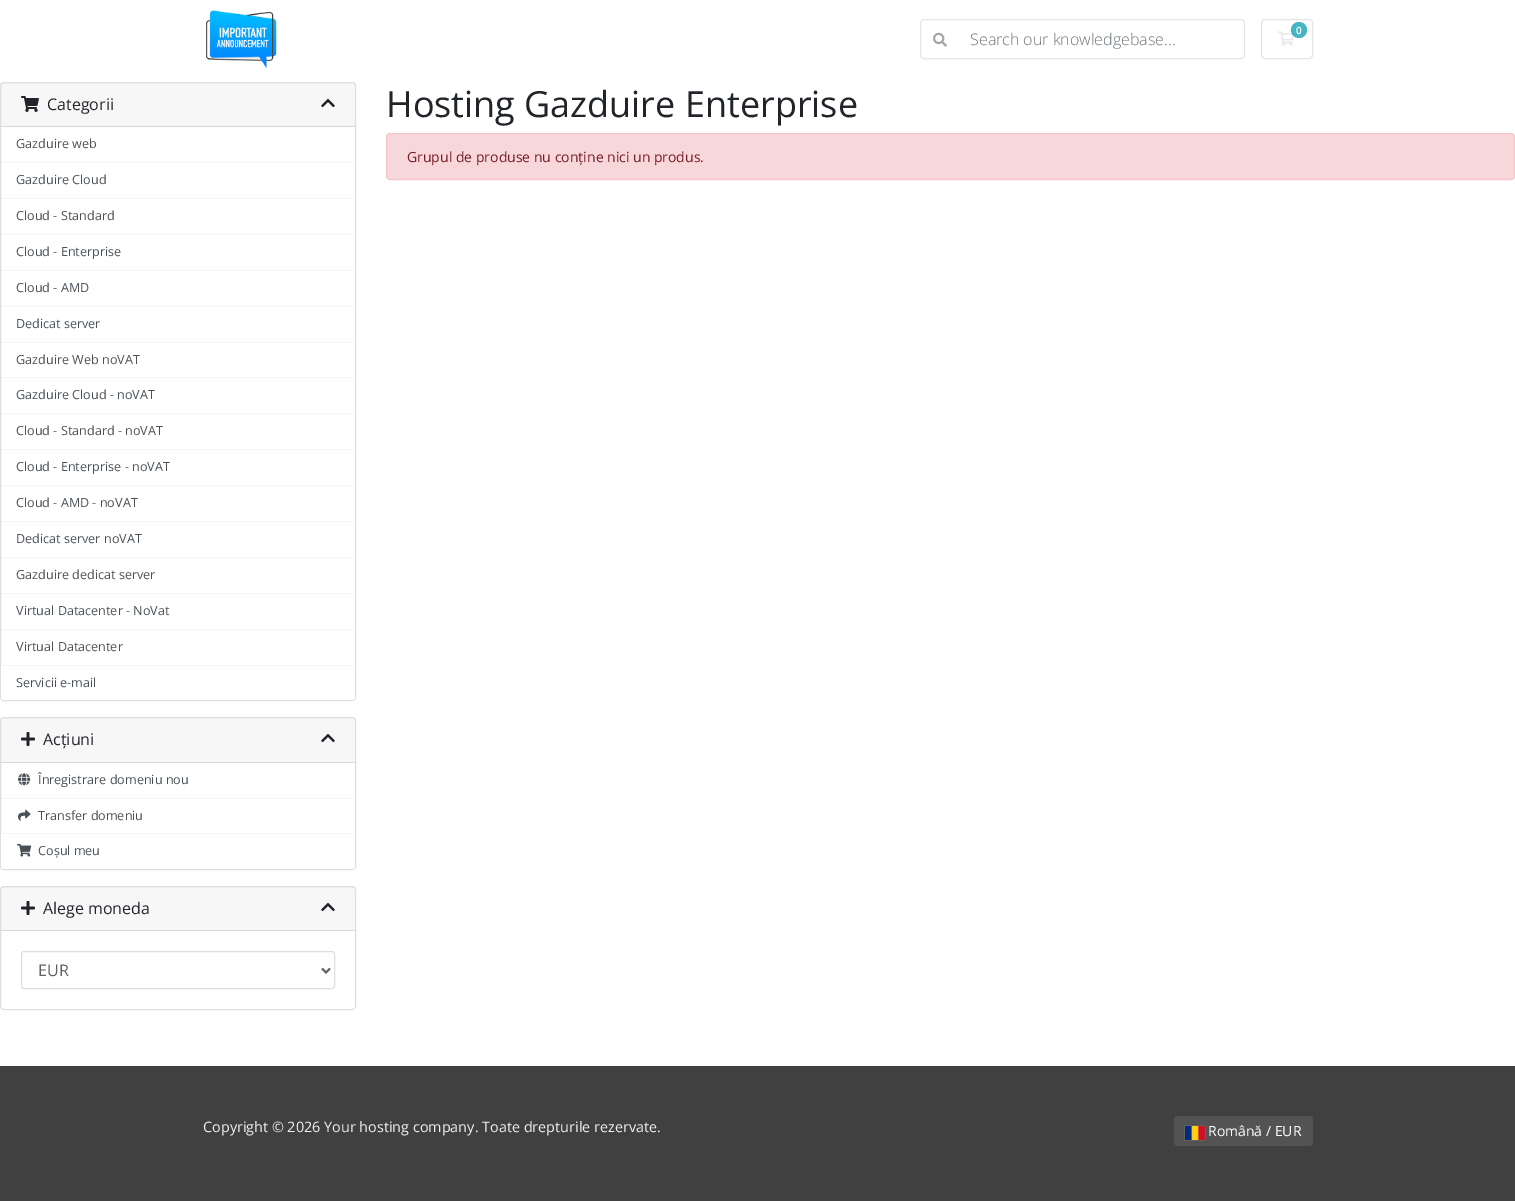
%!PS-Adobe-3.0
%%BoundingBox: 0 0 1515 1201
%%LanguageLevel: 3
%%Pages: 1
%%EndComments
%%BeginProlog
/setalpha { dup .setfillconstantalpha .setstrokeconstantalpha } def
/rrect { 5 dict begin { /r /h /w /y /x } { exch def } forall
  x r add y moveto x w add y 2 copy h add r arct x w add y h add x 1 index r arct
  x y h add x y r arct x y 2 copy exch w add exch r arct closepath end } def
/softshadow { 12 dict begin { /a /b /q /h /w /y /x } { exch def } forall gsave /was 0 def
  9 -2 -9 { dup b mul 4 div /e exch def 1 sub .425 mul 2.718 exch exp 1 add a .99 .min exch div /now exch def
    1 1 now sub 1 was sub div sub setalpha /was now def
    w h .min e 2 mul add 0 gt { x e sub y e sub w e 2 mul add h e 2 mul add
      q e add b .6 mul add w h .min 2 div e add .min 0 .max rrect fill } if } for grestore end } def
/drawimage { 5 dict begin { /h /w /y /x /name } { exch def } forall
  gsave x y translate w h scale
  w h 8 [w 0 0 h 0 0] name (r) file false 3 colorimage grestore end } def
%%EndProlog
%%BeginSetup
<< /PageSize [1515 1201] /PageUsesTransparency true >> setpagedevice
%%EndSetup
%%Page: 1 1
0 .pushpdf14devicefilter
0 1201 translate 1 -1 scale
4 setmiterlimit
1 setgray
0 0 1515 1201 rectfill
(images/1.raw) 206 10 72 59 drawimage
0.898 setgray
1261.5 19.5 51 39 3.5 rrect stroke
(images/2.raw) 1278 31 16 15 drawimage
0.8 setalpha
0.09 0.635 0.722 setrgbcolor
newpath 1299 30 8 0 360 arc closepath fill
1 setalpha
0.898 setgray
920.5 19.5 324 39 3.5 rrect stroke
(images/3.raw) 933 32 14 15 drawimage
0.875 setgray
0.5 82.5 355 618 3.5 rrect stroke
0.03 setalpha
0 setgray
1 83 354 43 rectfill
1 setalpha
0.847 setgray
1 126 354 1 rectfill
(images/4.raw) 21 96 18 16 drawimage
(images/5.raw) 321 98 14 10 drawimage
0.961 setgray
1 162 354 1 rectfill
1 198 354 1 rectfill
1 234 354 1 rectfill
1 270 354 1 rectfill
1 306 354 1 rectfill
1 342 354 1 rectfill
1 377 354 1 rectfill
1 413 354 1 rectfill
1 449 354 1 rectfill
1 485 354 1 rectfill
1 521 354 1 rectfill
1 557 354 1 rectfill
1 593 354 1 rectfill
1 629 354 1 rectfill
1 665 354 1 rectfill
1 setgray
newpath 1 666 moveto 355 666 lineto 355 697 lineto 355 698.5 353.5 700 352 700 curveto 4 700 lineto 2.5 700 1 698.5 1 697 curveto closepath fill
0.875 setgray
0.5 717.5 355 152 3.5 rrect stroke
0.03 setalpha
0 setgray
1 718 354 44 rectfill
1 setalpha
0.847 setgray
1 762 354 1 rectfill
(images/6.raw) 21 732 14 14 drawimage
(images/5.raw) 321 733 14 10 drawimage
0.961 setgray
1 798 354 1 rectfill
(images/7.raw) 18 773 13 13 drawimage
1 833 354 1 rectfill
(images/8.raw) 18 809 13 12 drawimage
1 setgray
newpath 1 834 moveto 355 834 lineto 355 866 lineto 355 867.5 353.5 869 352 869 curveto 4 869 lineto 2.5 869 1 867.5 1 866 curveto closepath fill
(images/9.raw) 17 844 15 13 drawimage
0.875 setgray
0.5 886.5 355 123 3.5 rrect stroke
0.03 setalpha
0 setgray
1 887 354 43 rectfill
1 setalpha
0.847 setgray
1 930 354 1 rectfill
(images/6.raw) 21 901 14 14 drawimage
(images/5.raw) 321 902 14 10 drawimage
0.867 setgray
21.5 951.5 313 37 2.5 rrect stroke
0.384 setgray
2 setlinewidth
newpath 322 968.5 moveto 326 972.5 lineto 330 968.5 lineto stroke
0.973 0.843 0.855 setrgbcolor
386.5 133.5 1128 46 3.5 rrect gsave fill grestore
0.961 0.776 0.796 setrgbcolor
1 setlinewidth
stroke
0.251 setgray
0 1066 1515 135 rectfill
0.325 setgray
1174 1116 139 30 4 rrect fill
0.533 setgray
1185 1126 20 14 0 0.5 1 softshadow
(images/10.raw) 1185 1126 20 14 drawimage
/OpenSans-SemiBold [10 0 0 -10 0 0] selectfont
1 setgray
1296 34 moveto (0) show
/OpenSans-Light [16 0 0 -16 0 0] selectfont
0.424 0.459 0.49 setrgbcolor
970 45 moveto (Search our knowledgebase...) show
/OpenSans-Regular [16 0 0 -16 0 0] selectfont
0.129 0.145 0.161 setrgbcolor
47 110 moveto (Categorii) show
/OpenSans-Regular [12.6 0 0 -12.6 0 0] selectfont
0.286 0.314 0.341 setrgbcolor
16 148 moveto (Gazduire web) show
16 184 moveto (Gazduire Cloud) show
16 220 moveto (Cloud - Standard) show
16 256 moveto (Cloud - Enterprise) show
16 292 moveto (Cloud - AMD) show
16 328 moveto (Dedicat server) show
16 364 moveto (Gazduire Web noVAT) show
16 399 moveto (Gazduire Cloud - noVAT) show
16 435 moveto (Cloud - Standard - noVAT) show
16 471 moveto (Cloud - Enterprise - noVAT) show
16 507 moveto (Cloud - AMD - noVAT) show
16 543 moveto (Dedicat server noVAT) show
16 579 moveto (Gazduire dedicat server) show
16 615 moveto (Virtual Datacenter - NoVat) show
16 651 moveto (Virtual Datacenter) show
16 687 moveto (Servicii e-mail) show
/OpenSans-Regular [16 0 0 -16 0 0] selectfont
0.129 0.145 0.161 setrgbcolor
43 745 moveto (Acțiuni) show
/OpenSans-Regular [12.6 0 0 -12.6 0 0] selectfont
0.286 0.314 0.341 setrgbcolor
38 784 moveto (Înregistrare domeniu nou) show
38 820 moveto (Transfer domeniu) show
38 855 moveto (Coșul meu) show
/OpenSans-Regular [16 0 0 -16 0 0] selectfont
0.129 0.145 0.161 setrgbcolor
43 914 moveto (Alege moneda) show
0.384 setgray
38 976 moveto (EUR) show
/OpenSans-Regular [36 0 0 -36 0 0] selectfont
0.129 0.145 0.161 setrgbcolor
386 117 moveto (Hosting Gazduire Enterprise) show
/OpenSans-Regular [14 0 0 -14 0 0] selectfont
0.447 0.11 0.141 setrgbcolor
407 162 moveto (Grupul de produse nu conține nici un produs.) show
/OpenSans-Regular [14.4 0 0 -14.4 0 0] selectfont
0.933 setgray
203 1132 moveto (Copyright © 2026 Your hosting company. Toate drepturile rezervate.) show
/OpenSans-Regular [14 0 0 -14 0 0] selectfont
1 setgray
1208 1136 moveto (Română / EUR) show
.poppdf14devicefilter showpage
%%EOF
